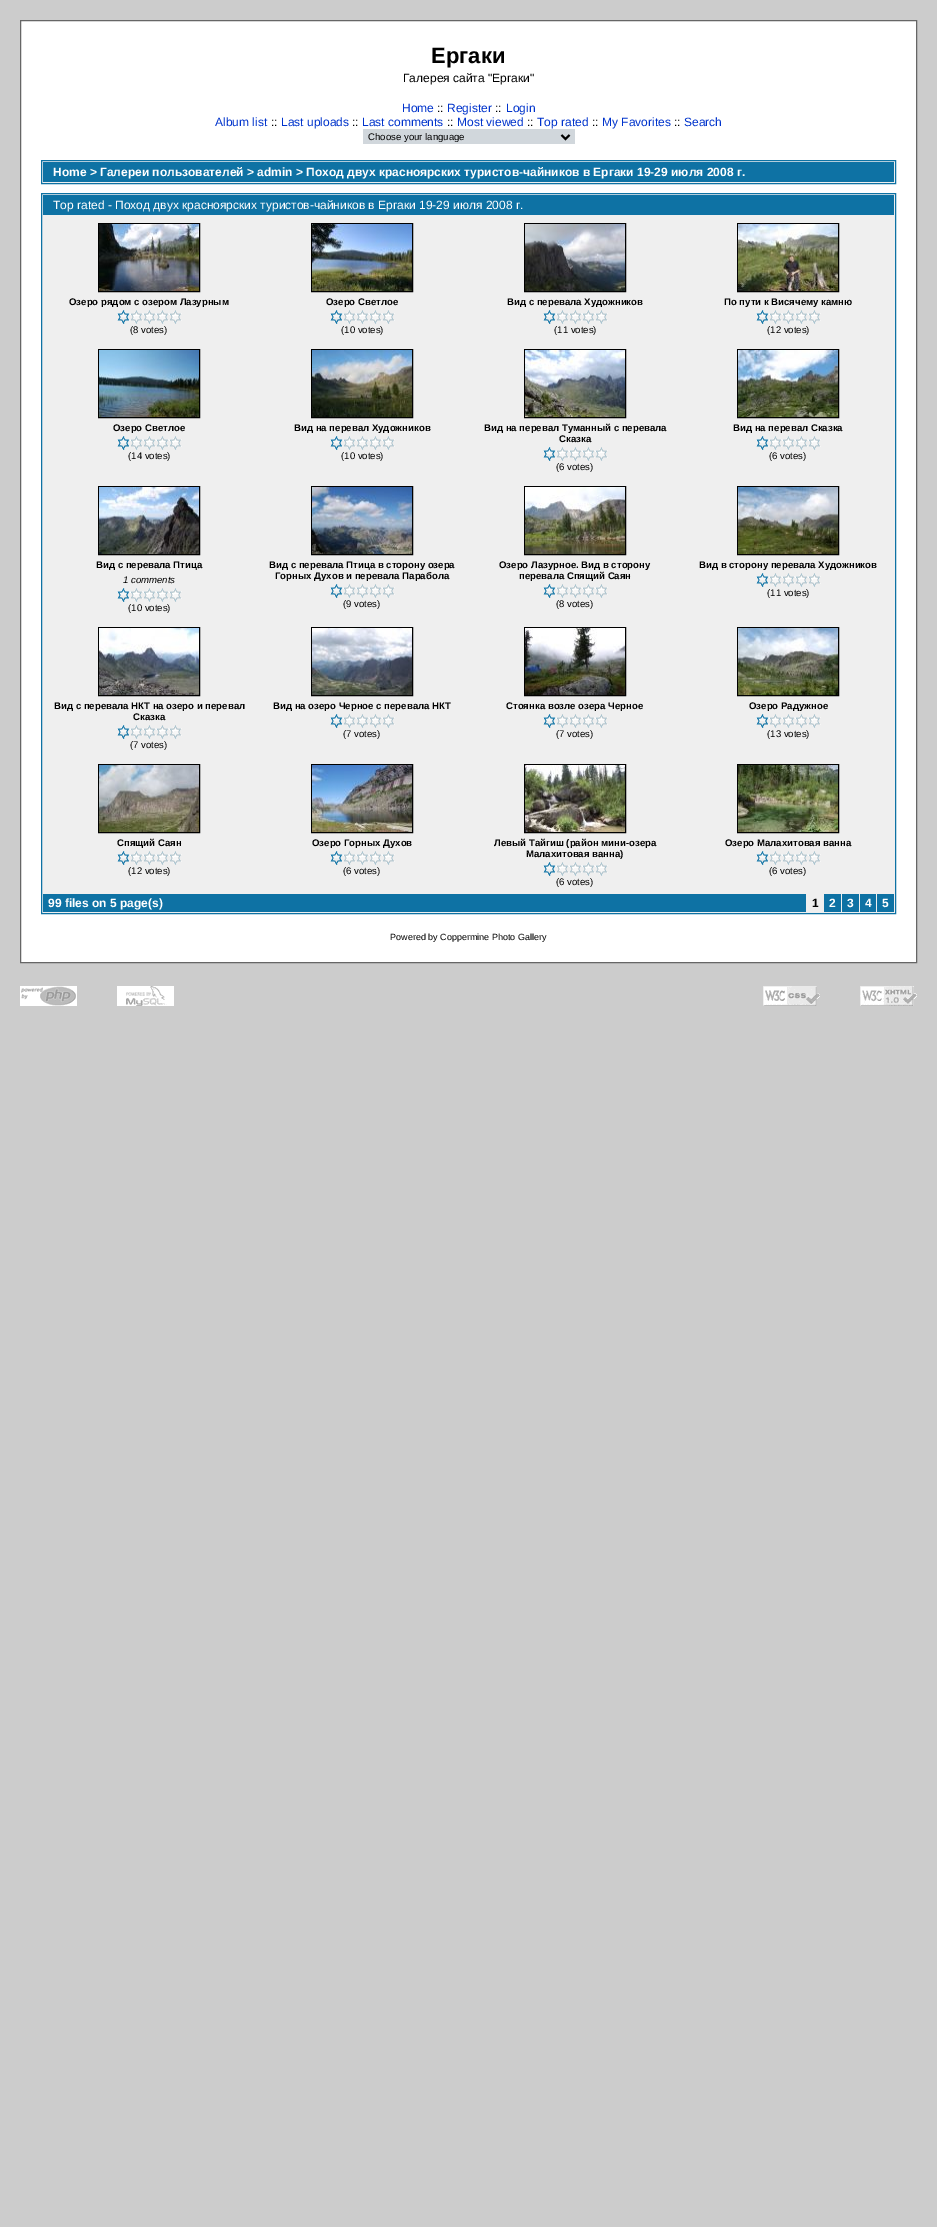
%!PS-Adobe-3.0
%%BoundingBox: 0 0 937 2227
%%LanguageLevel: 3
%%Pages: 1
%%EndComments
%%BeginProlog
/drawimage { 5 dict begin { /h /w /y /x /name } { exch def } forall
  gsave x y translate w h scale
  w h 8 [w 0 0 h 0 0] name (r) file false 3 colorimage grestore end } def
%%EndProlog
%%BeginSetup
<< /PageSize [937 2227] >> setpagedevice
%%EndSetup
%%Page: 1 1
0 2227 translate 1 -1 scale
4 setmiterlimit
0.8 setgray
0 0 937 2227 rectfill
1 setgray
newpath 20.5 20.5 moveto 916.5 20.5 lineto 916.5 962.5 lineto 20.5 962.5 lineto closepath gsave fill grestore
0.4 setgray
stroke
0.82 0.843 0.863 setrgbcolor
363 129 212 15 rectfill
0 setgray
2 setlinewidth
newpath 561.5 135 moveto 565.5 139 lineto 569.5 135 lineto stroke
0.937 setgray
newpath 41.5 160.5 moveto 895.5 160.5 lineto 895.5 183.5 lineto 41.5 183.5 lineto closepath gsave fill grestore
0.055 0.447 0.643 setrgbcolor
1 setlinewidth
stroke
43 162 851 20 rectfill
0.937 setgray
newpath 41.5 193.5 moveto 895.5 193.5 lineto 895.5 913.5 lineto 41.5 913.5 lineto closepath gsave fill grestore
0.055 0.447 0.643 setrgbcolor
stroke
43 195 851 20 rectfill
0 setgray
98.5 223.5 101 68 rectstroke
(images/1.raw) 99 224 100 67 drawimage
(images/2.raw) 117 310 65 14 drawimage
311.5 223.5 101 68 rectstroke
(images/3.raw) 312 224 100 67 drawimage
(images/2.raw) 330 310 65 14 drawimage
524.5 223.5 101 68 rectstroke
(images/4.raw) 525 224 100 67 drawimage
(images/2.raw) 543 310 65 14 drawimage
737.5 223.5 101 68 rectstroke
(images/5.raw) 738 224 100 67 drawimage
(images/2.raw) 756 310 65 14 drawimage
98.5 349.5 101 68 rectstroke
(images/6.raw) 99 350 100 67 drawimage
(images/2.raw) 117 436 65 14 drawimage
311.5 349.5 101 68 rectstroke
(images/7.raw) 312 350 100 67 drawimage
(images/2.raw) 330 436 65 14 drawimage
524.5 349.5 101 68 rectstroke
(images/8.raw) 525 350 100 67 drawimage
(images/2.raw) 543 447 65 14 drawimage
737.5 349.5 101 68 rectstroke
(images/9.raw) 738 350 100 67 drawimage
(images/2.raw) 756 436 65 14 drawimage
98.5 486.5 101 68 rectstroke
(images/10.raw) 99 487 100 67 drawimage
(images/2.raw) 117 588 65 14 drawimage
311.5 486.5 101 68 rectstroke
(images/11.raw) 312 487 100 67 drawimage
(images/2.raw) 330 584 65 14 drawimage
524.5 486.5 101 68 rectstroke
(images/12.raw) 525 487 100 67 drawimage
(images/2.raw) 543 584 65 14 drawimage
737.5 486.5 101 68 rectstroke
(images/13.raw) 738 487 100 67 drawimage
(images/2.raw) 756 573 65 14 drawimage
98.5 627.5 101 68 rectstroke
(images/14.raw) 99 628 100 67 drawimage
(images/2.raw) 117 725 65 14 drawimage
311.5 627.5 101 68 rectstroke
(images/15.raw) 312 628 100 67 drawimage
(images/2.raw) 330 714 65 14 drawimage
524.5 627.5 101 68 rectstroke
(images/16.raw) 525 628 100 67 drawimage
(images/2.raw) 543 714 65 14 drawimage
737.5 627.5 101 68 rectstroke
(images/17.raw) 738 628 100 67 drawimage
(images/2.raw) 756 714 65 14 drawimage
98.5 764.5 101 68 rectstroke
(images/18.raw) 99 765 100 67 drawimage
(images/2.raw) 117 851 65 14 drawimage
311.5 764.5 101 68 rectstroke
(images/19.raw) 312 765 100 67 drawimage
(images/2.raw) 330 851 65 14 drawimage
524.5 764.5 101 68 rectstroke
(images/20.raw) 525 765 100 67 drawimage
(images/2.raw) 543 862 65 14 drawimage
737.5 764.5 101 68 rectstroke
(images/21.raw) 738 765 100 67 drawimage
(images/2.raw) 756 851 65 14 drawimage
0.055 0.447 0.643 setrgbcolor
43 894 763 18 rectfill
824 894 17 18 rectfill
842 894 17 18 rectfill
860 894 16 18 rectfill
877 894 17 18 rectfill
(images/22.raw) 20 986 57 20 drawimage
(images/23.raw) 117 986 57 20 drawimage
(images/24.raw) 763 986 57 20 drawimage
(images/25.raw) 860 986 57 20 drawimage
/LiberationSans-Bold [22 0 0 -22 0 0] selectfont
0 setgray
431 63 moveto (Ергаки) show
/LiberationSans-Regular [12 0 0 -12 0 0] selectfont
403 82 moveto (Галерея сайта "Ергаки") show
0 0.2 0.8 setrgbcolor
402 112 moveto (Home) show
0 setgray
437 112 moveto (::) show
0 0.2 0.8 setrgbcolor
447 112 moveto (Register) show
0 setgray
495 112 moveto (::) show
0 0.2 0.8 setrgbcolor
506 112 moveto (Login) show
215 126 moveto (Album list) show
0 setgray
271 126 moveto (::) show
0 0.2 0.8 setrgbcolor
281 126 moveto (Last uploads) show
0 setgray
352 126 moveto (::) show
0 0.2 0.8 setrgbcolor
362 126 moveto (Last comments) show
0 setgray
447 126 moveto (::) show
0 0.2 0.8 setrgbcolor
457 126 moveto (Most viewed) show
0 setgray
527 126 moveto (::) show
0 0.2 0.8 setrgbcolor
537 126 moveto (Top rated) show
0 setgray
592 126 moveto (::) show
0 0.2 0.8 setrgbcolor
602 126 moveto (My Favorites) show
0 setgray
674 126 moveto (::) show
0 0.2 0.8 setrgbcolor
684 126 moveto (Search) show
/LiberationSans-Regular [9.6 0 0 -9.6 0 0] selectfont
0 setgray
368 140 moveto (Choose your language) show
/LiberationSans-Bold [12 0 0 -12 0 0] selectfont
1 setgray
53 176 moveto (Home > Галереи пользователей > admin > Поход двух красноярских туристов-чайников в Ергаки 19-29 июля 2008 г.) show
/LiberationSans-Regular [12 0 0 -12 0 0] selectfont
53 209 moveto (Top rated - Поход двух красноярских туристов-чайников в Ергаки 19-29 июля 2008 г.) show
/LiberationSans-Bold [9.6 0 0 -9.6 0 0] selectfont
0 setgray
69 305 moveto (Озеро рядом с озером Лазурным) show
/LiberationSans-Regular [9.6 0 0 -9.6 0 0] selectfont
130 333 moveto (\(8 votes\)) show
/LiberationSans-Bold [9.6 0 0 -9.6 0 0] selectfont
326 305 moveto (Озеро Светлое) show
/LiberationSans-Regular [9.6 0 0 -9.6 0 0] selectfont
341 333 moveto (\(10 votes\)) show
/LiberationSans-Bold [9.6 0 0 -9.6 0 0] selectfont
507 305 moveto (Вид с перевала Художников) show
/LiberationSans-Regular [9.6 0 0 -9.6 0 0] selectfont
554 333 moveto (\(11 votes\)) show
/LiberationSans-Bold [9.6 0 0 -9.6 0 0] selectfont
724 305 moveto (По пути к Висячему камню) show
/LiberationSans-Regular [9.6 0 0 -9.6 0 0] selectfont
767 333 moveto (\(12 votes\)) show
/LiberationSans-Bold [9.6 0 0 -9.6 0 0] selectfont
113 431 moveto (Озеро Светлое) show
/LiberationSans-Regular [9.6 0 0 -9.6 0 0] selectfont
128 459 moveto (\(14 votes\)) show
/LiberationSans-Bold [9.6 0 0 -9.6 0 0] selectfont
294 431 moveto (Вид на перевал Художников) show
/LiberationSans-Regular [9.6 0 0 -9.6 0 0] selectfont
341 459 moveto (\(10 votes\)) show
/LiberationSans-Bold [9.6 0 0 -9.6 0 0] selectfont
484 431 moveto (Вид на перевал Туманный с перевала) show
559 442 moveto (Сказка) show
/LiberationSans-Regular [9.6 0 0 -9.6 0 0] selectfont
556 470 moveto (\(6 votes\)) show
/LiberationSans-Bold [9.6 0 0 -9.6 0 0] selectfont
733 431 moveto (Вид на перевал Сказка) show
/LiberationSans-Regular [9.6 0 0 -9.6 0 0] selectfont
769 459 moveto (\(6 votes\)) show
/LiberationSans-Bold [9.6 0 0 -9.6 0 0] selectfont
96 568 moveto (Вид с перевала Птица) show
/LiberationSans-Italic [9.6 0 0 -9.6 0 0] selectfont
123 583 moveto (1 comments) show
/LiberationSans-Regular [9.6 0 0 -9.6 0 0] selectfont
128 611 moveto (\(10 votes\)) show
/LiberationSans-Bold [9.6 0 0 -9.6 0 0] selectfont
269 568 moveto (Вид с перевала Птица в сторону озера) show
275 579 moveto (Горных Духов и перевала Парабола) show
/LiberationSans-Regular [9.6 0 0 -9.6 0 0] selectfont
343 607 moveto (\(9 votes\)) show
/LiberationSans-Bold [9.6 0 0 -9.6 0 0] selectfont
499 568 moveto (Озеро Лазурное. Вид в сторону) show
519 579 moveto (перевала Спящий Саян) show
/LiberationSans-Regular [9.6 0 0 -9.6 0 0] selectfont
556 607 moveto (\(8 votes\)) show
/LiberationSans-Bold [9.6 0 0 -9.6 0 0] selectfont
699 568 moveto (Вид в сторону перевала Художников) show
/LiberationSans-Regular [9.6 0 0 -9.6 0 0] selectfont
767 596 moveto (\(11 votes\)) show
/LiberationSans-Bold [9.6 0 0 -9.6 0 0] selectfont
54 709 moveto (Вид с перевала НКТ на озеро и перевал) show
133 720 moveto (Сказка) show
/LiberationSans-Regular [9.6 0 0 -9.6 0 0] selectfont
130 748 moveto (\(7 votes\)) show
/LiberationSans-Bold [9.6 0 0 -9.6 0 0] selectfont
273 709 moveto (Вид на озеро Черное с перевала НКТ) show
/LiberationSans-Regular [9.6 0 0 -9.6 0 0] selectfont
343 737 moveto (\(7 votes\)) show
/LiberationSans-Bold [9.6 0 0 -9.6 0 0] selectfont
506 709 moveto (Стоянка возле озера Черное) show
/LiberationSans-Regular [9.6 0 0 -9.6 0 0] selectfont
556 737 moveto (\(7 votes\)) show
/LiberationSans-Bold [9.6 0 0 -9.6 0 0] selectfont
749 709 moveto (Озеро Радужное) show
/LiberationSans-Regular [9.6 0 0 -9.6 0 0] selectfont
767 737 moveto (\(13 votes\)) show
/LiberationSans-Bold [9.6 0 0 -9.6 0 0] selectfont
117 846 moveto (Спящий Саян) show
/LiberationSans-Regular [9.6 0 0 -9.6 0 0] selectfont
128 874 moveto (\(12 votes\)) show
/LiberationSans-Bold [9.6 0 0 -9.6 0 0] selectfont
312 846 moveto (Озеро Горных Духов) show
/LiberationSans-Regular [9.6 0 0 -9.6 0 0] selectfont
343 874 moveto (\(6 votes\)) show
/LiberationSans-Bold [9.6 0 0 -9.6 0 0] selectfont
494 846 moveto (Левый Тайгиш \(район мини-озера) show
526 857 moveto (Малахитовая ванна\)) show
/LiberationSans-Regular [9.6 0 0 -9.6 0 0] selectfont
556 885 moveto (\(6 votes\)) show
/LiberationSans-Bold [9.6 0 0 -9.6 0 0] selectfont
725 846 moveto (Озеро Малахитовая ванна) show
/LiberationSans-Regular [9.6 0 0 -9.6 0 0] selectfont
769 874 moveto (\(6 votes\)) show
/LiberationSans-Bold [12 0 0 -12 0 0] selectfont
1 setgray
48 907 moveto (99 files on 5 page\(s\)) show
0 setgray
812 907 moveto (1) show
1 setgray
829 907 moveto (2) show
847 907 moveto (3) show
865 907 moveto (4) show
882 907 moveto (5) show
/LiberationSans-Regular [9 0 0 -9 0 0] selectfont
0 setgray
390 940 moveto (Powered by Coppermine Photo Gallery) show
showpage
%%EOF
